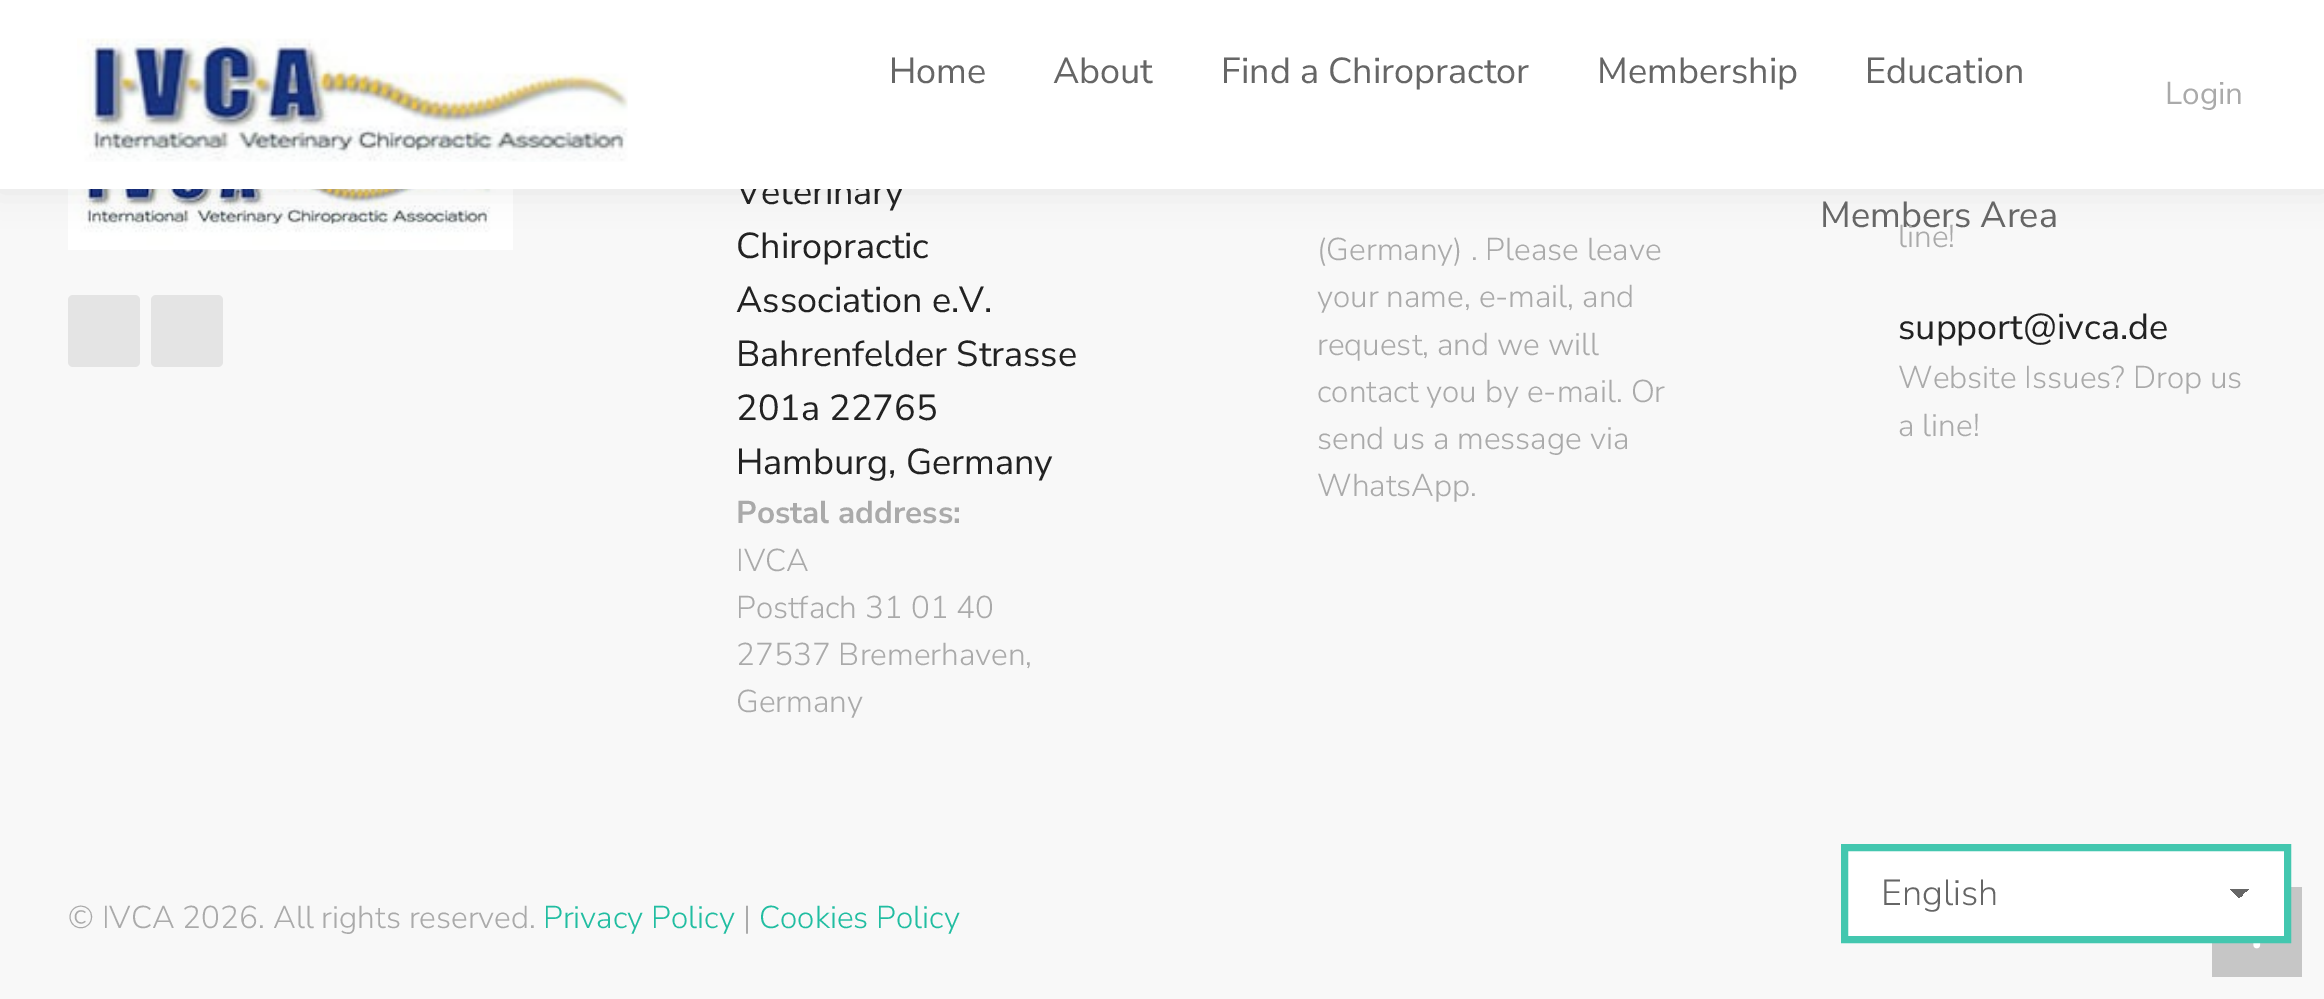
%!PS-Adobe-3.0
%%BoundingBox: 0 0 2324 999
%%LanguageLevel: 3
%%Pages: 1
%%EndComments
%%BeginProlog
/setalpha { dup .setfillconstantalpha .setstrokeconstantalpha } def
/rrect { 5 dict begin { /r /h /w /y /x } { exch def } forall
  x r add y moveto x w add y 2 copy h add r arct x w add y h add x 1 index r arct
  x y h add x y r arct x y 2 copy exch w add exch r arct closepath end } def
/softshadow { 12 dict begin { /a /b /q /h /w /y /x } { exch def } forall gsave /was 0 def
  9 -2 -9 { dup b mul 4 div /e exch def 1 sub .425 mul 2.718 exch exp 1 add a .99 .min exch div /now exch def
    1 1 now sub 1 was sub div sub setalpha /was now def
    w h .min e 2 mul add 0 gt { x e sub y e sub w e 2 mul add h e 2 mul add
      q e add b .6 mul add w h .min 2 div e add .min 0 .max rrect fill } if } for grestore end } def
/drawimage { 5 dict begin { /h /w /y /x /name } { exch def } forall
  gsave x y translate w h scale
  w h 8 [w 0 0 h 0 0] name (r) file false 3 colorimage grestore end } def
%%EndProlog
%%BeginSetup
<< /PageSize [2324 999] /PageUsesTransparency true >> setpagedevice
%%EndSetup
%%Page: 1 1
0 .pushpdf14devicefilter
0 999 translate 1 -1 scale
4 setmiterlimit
0.973 setgray
0 0 2324 999 rectfill
(images/2.raw) 68 189 445 61 drawimage
0 setgray
-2 -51 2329 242 0 17 0.07 softshadow
0.894 setgray
68 295 72 72 5 rrect fill
151 295 72 72 5 rrect fill
0.2 setalpha
0 setgray
2212 887 90 90 rectfill
1 setalpha
(images/3.raw) 2253 943 8 6 drawimage
1 setgray
1848 851 436 85 rectfill
gsave newpath 2239 889 moveto 2249 889 lineto 2249 898 lineto 2239 898 lineto closepath clip newpath
<< /ShadingType 2 /ColorSpace /DeviceRGB /Coords [2239 888 2250 899] /Extend [true true] /Function << /FunctionType 3 /Domain [0 1] /Functions [<< /FunctionType 2 /Domain [0 1] /C0 [0.4 0.4 0.4] /C1 [0.4 0.4 0.4] /N 1 >> << /FunctionType 2 /Domain [0 1] /C0 [1 1 1] /C1 [1 1 1] /N 1 >>] /Bounds [0.5] /Encode [0 1 0 1] >> >> shfill grestore
gsave newpath 2230 889 moveto 2239 889 lineto 2239 898 lineto 2230 898 lineto closepath clip newpath
<< /ShadingType 2 /ColorSpace /DeviceRGB /Coords [2228 899 2239 888] /Extend [true true] /Function << /FunctionType 3 /Domain [0 1] /Functions [<< /FunctionType 2 /Domain [0 1] /C0 [1 1 1] /C1 [1 1 1] /N 1 >> << /FunctionType 2 /Domain [0 1] /C0 [0.4 0.4 0.4] /C1 [0.4 0.4 0.4] /N 1 >>] /Bounds [0.5] /Encode [0 1 0 1] >> >> shfill grestore
0.263 0.78 0.686 setrgbcolor
7 setlinewidth
1844.5 847.5 443 92 rectstroke
/NunitoSans-Regular [36 0 0 -36 0 0] selectfont
0.4 setgray
1820 227 moveto (Members Area) show
0.133 setgray
736 204 moveto (Veterinary) show
1 setgray
0 0 2324 189 rectfill
/NunitoSans-Regular [31.5 0 0 -31.5 0 0] selectfont
0.667 setgray
2165 104 moveto (Login) show
/NunitoSans-Regular [36 0 0 -36 0 0] selectfont
0.4 setgray
1865 83 moveto (Education) show
1597 83 moveto (Membership) show
1221 83 moveto (Find a Chiropractor) show
1053 83 moveto (About) show
889 83 moveto (Home) show
(images/1.raw) 77 38 551 124 drawimage
0.133 setgray
736 258 moveto (Chiropractic) show
736 312 moveto (Association e.V.) show
736 366 moveto (Bahrenfelder Strasse) show
736 420 moveto (201a 22765) show
736 474 moveto (Hamburg, Germany) show
/NunitoSans-Bold [31.5 0 0 -31.5 0 0] selectfont
0.667 setgray
736 523 moveto (Postal address:) show
/NunitoSans-Light [31.5 0 0 -31.5 0 0] selectfont
736 571 moveto (IVCA) show
736 618 moveto (Postfach 31 01 40) show
736 665 moveto (27537 Bremerhaven,) show
736 712 moveto (Germany) show
1317 260 moveto (\(Germany\) . Please leave) show
1317 307 moveto (your name, e-mail, and) show
1317 355 moveto (request, and we will) show
1317 402 moveto (contact you by e-mail. Or) show
1317 449 moveto (send us a message via) show
1317 496 moveto (WhatsApp.) show
1898 247 moveto (line!) show
/NunitoSans-Regular [36 0 0 -36 0 0] selectfont
0.133 setgray
1898 339 moveto (support@ivca.de) show
/NunitoSans-Light [31.5 0 0 -31.5 0 0] selectfont
0.667 setgray
1898 388 moveto (Website Issues? Drop us) show
1898 436 moveto (a line!) show
68 928 moveto (© IVCA 2026. All rights reserved.) show
0.129 0.741 0.631 setrgbcolor
543 928 moveto (Privacy Policy) show
0.667 setgray
743 928 moveto (|) show
0.129 0.741 0.631 setrgbcolor
759 928 moveto (Cookies Policy) show
/NunitoSans-Light [36 0 0 -36 0 0] selectfont
0.4 setgray
1881 905 moveto (English) show
.poppdf14devicefilter showpage
%%EOF
